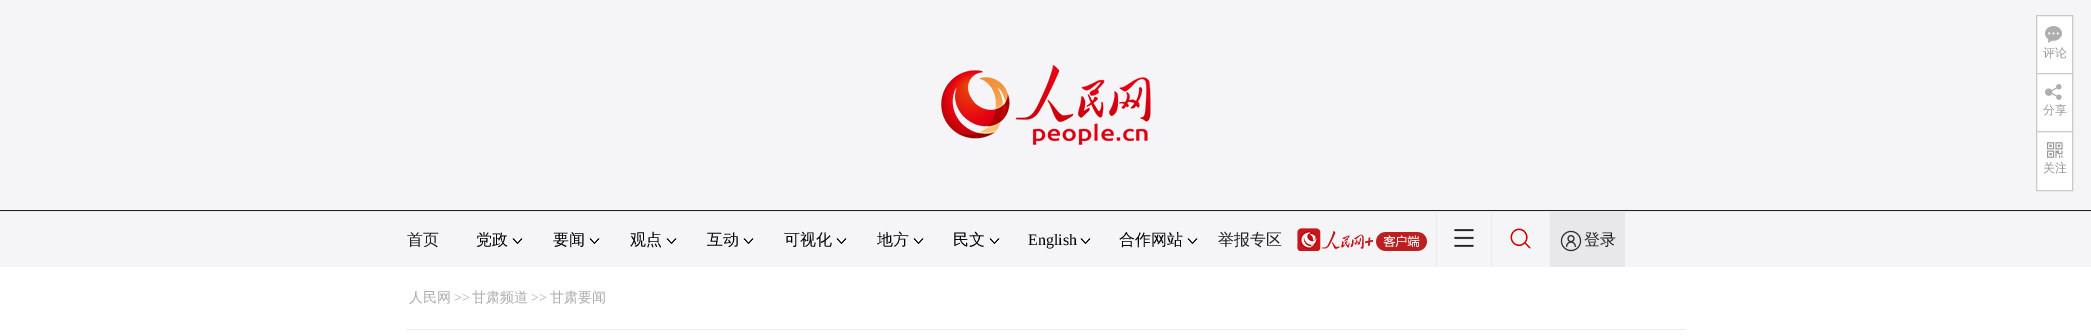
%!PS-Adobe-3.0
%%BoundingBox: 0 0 2091 336
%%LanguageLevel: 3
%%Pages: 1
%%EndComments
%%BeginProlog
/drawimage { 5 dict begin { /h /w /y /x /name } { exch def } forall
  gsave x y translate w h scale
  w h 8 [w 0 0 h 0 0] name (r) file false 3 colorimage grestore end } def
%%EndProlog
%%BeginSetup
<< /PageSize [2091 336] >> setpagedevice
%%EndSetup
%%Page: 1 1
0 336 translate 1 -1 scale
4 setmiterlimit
1 setgray
0 0 2091 336 rectfill
0.961 0.961 0.969 setrgbcolor
0 0 2091 210 rectfill
0.129 setgray
0 210 2091 1 rectfill
(images/1.raw) 941 65 210 80 drawimage
1 setgray
2037 16 35 57 rectfill
0.788 setgray
2036.5 15.5 36 60 rectstroke
(images/2.raw) 2045 26 17 17 drawimage
1 setgray
2037 74 35 57 rectfill
0.788 setgray
2036.5 73.5 36 59 rectstroke
(images/3.raw) 2045 84 17 16 drawimage
1 setgray
newpath 2036.5 131.5 moveto 2072.5 131.5 lineto 2072.5 190.5 lineto 2036.5 190.5 lineto closepath gsave fill grestore
0.788 setgray
stroke
(images/4.raw) 2047 142 16 16 drawimage
0.914 setgray
0 211 2091 1 rectfill
0.961 0.961 0.969 setrgbcolor
0 212 2091 55 rectfill
(images/5.raw) 512 238 11 6 drawimage
(images/5.raw) 589 238 11 6 drawimage
(images/5.raw) 666 238 11 6 drawimage
(images/5.raw) 743 238 11 6 drawimage
(images/5.raw) 836 238 11 6 drawimage
(images/5.raw) 913 238 11 6 drawimage
(images/5.raw) 989 238 11 6 drawimage
(images/5.raw) 1080 238 11 6 drawimage
(images/5.raw) 1187 238 11 6 drawimage
(images/6.raw) 1297 228 130 23 drawimage
0.922 0.922 0.929 setrgbcolor
1491 212 1 55 rectfill
1436 212 1 55 rectfill
(images/7.raw) 1454 229 20 18 drawimage
(images/8.raw) 1510 228 22 22 drawimage
0.91 0.91 0.918 setrgbcolor
1550 212 75 55 rectfill
(images/9.raw) 1560 230 22 22 drawimage
0.925 setgray
406 329 1280 1 rectfill
/WenQuanYiZenHei-Medium [12 0 0 -12 0 0] selectfont
0.6 setgray
2043 57 moveto (评论) show
2043 114 moveto (分享) show
2043 172 moveto (关注) show
/WenQuanYiZenHei-Medium [16 0 0 -16 0 0] selectfont
0.129 setgray
407 245 moveto (首页) show
0 setgray
476 245 moveto (党政) show
553 245 moveto (要闻) show
630 245 moveto (观点) show
707 245 moveto (互动) show
784 245 moveto (可视化) show
877 245 moveto (地方) show
953 245 moveto (民文) show
/LiberationSerif-Regular [16 0 0 -16 0 0] selectfont
1028 245 moveto (English) show
/WenQuanYiZenHei-Medium [16 0 0 -16 0 0] selectfont
1119 245 moveto (合作网站) show
0.129 setgray
1218 245 moveto (举报专区) show
1584 245 moveto (登录) show
/WenQuanYiZenHei-Medium [14 0 0 -14 0 0] selectfont
0.678 setgray
409 302 moveto (人民网) show
/LiberationSerif-Regular [14 0 0 -14 0 0] selectfont
454 302 moveto (>>) show
/WenQuanYiZenHei-Medium [14 0 0 -14 0 0] selectfont
472 302 moveto (甘肃频道) show
/LiberationSerif-Regular [14 0 0 -14 0 0] selectfont
531 302 moveto (>>) show
/WenQuanYiZenHei-Medium [14 0 0 -14 0 0] selectfont
550 302 moveto (甘肃要闻) show
showpage
%%EOF
